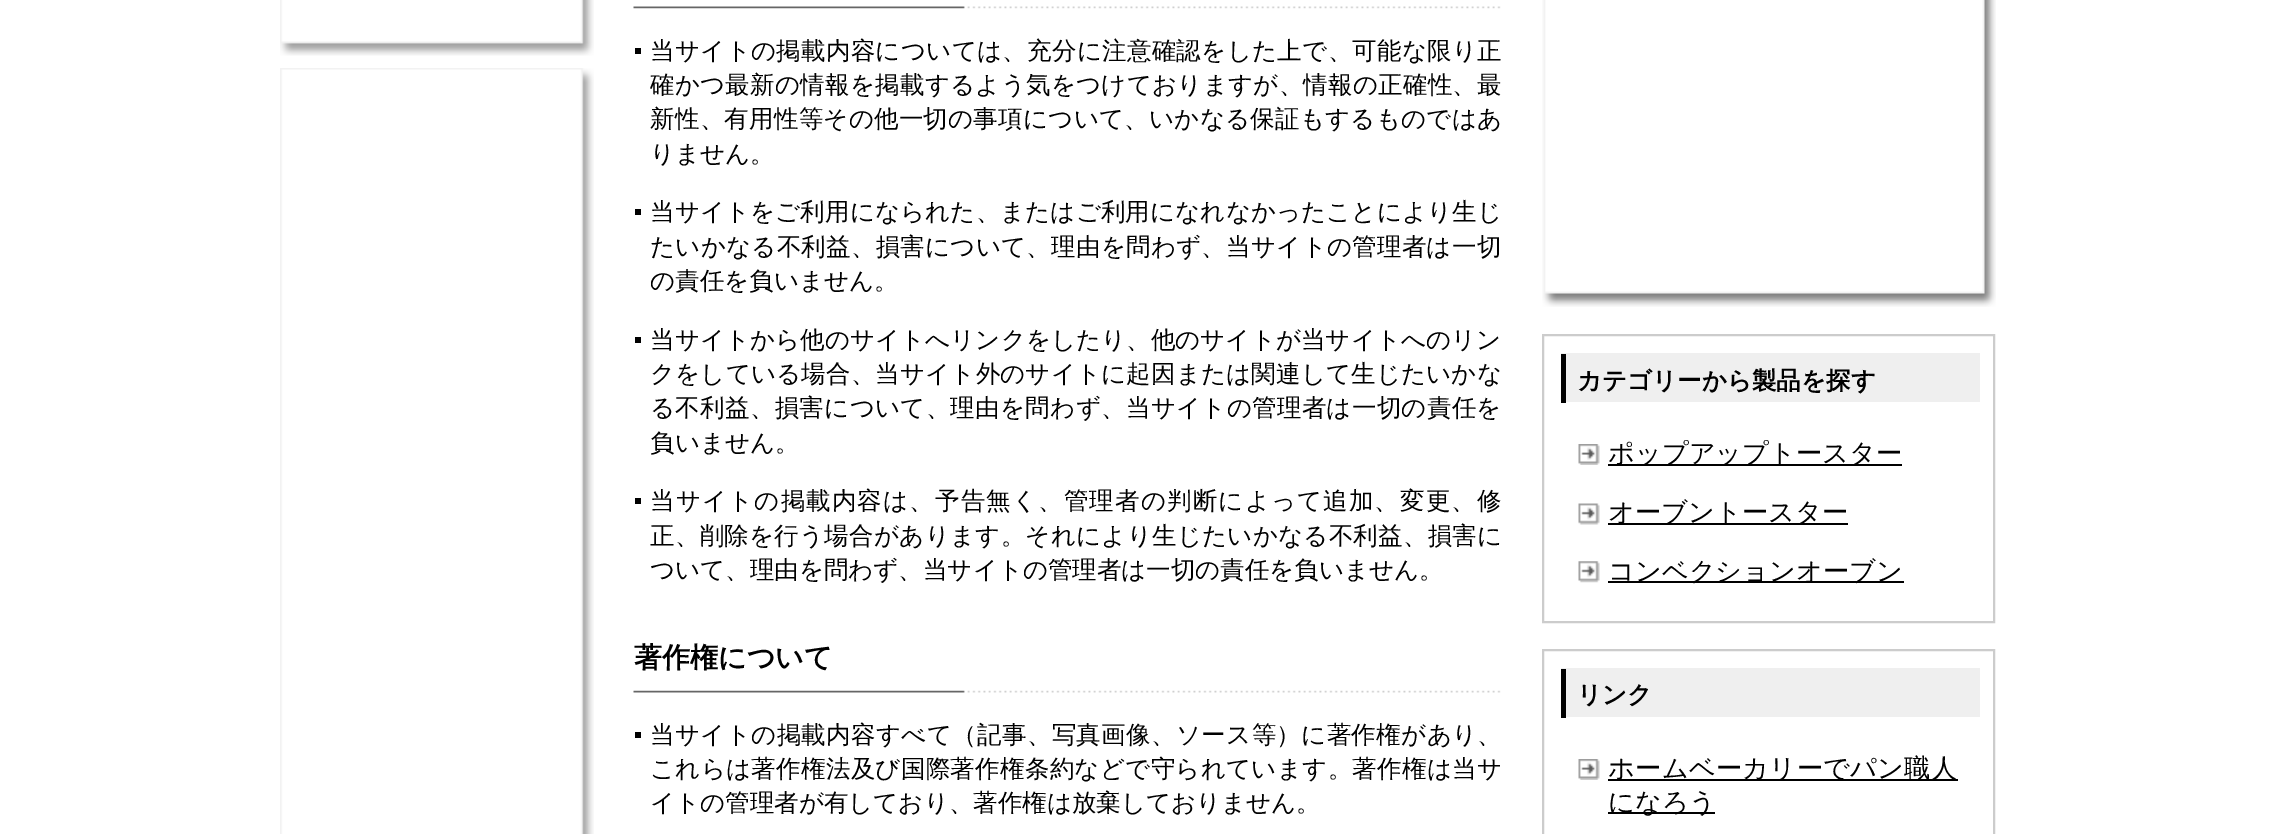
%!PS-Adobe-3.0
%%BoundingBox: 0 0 2274 834
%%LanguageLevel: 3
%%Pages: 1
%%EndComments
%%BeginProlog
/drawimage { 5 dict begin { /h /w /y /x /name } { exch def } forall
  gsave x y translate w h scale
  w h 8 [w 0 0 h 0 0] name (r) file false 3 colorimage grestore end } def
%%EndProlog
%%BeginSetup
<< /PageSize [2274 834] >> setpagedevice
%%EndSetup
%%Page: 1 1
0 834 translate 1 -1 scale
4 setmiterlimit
1 setgray
0 0 2274 834 rectfill
(images/1.raw) 280 0 314 56 drawimage
(images/2.raw) 280 68 314 766 drawimage
(images/3.raw) 633 6 868 3 drawimage
0 setgray
635 48 6 6 rectfill
635 209 6 6 rectfill
635 337 6 6 rectfill
635 498 6 6 rectfill
(images/4.raw) 633 690 868 3 drawimage
635 732 6 6 rectfill
(images/5.raw) 1542 0 454 307 drawimage
0.8 setgray
2 setlinewidth
1543 335 451 287 rectstroke
0.937 setgray
1561 353 419 49 rectfill
0 setgray
1561 354 5 49 rectfill
(images/6.raw) 1578 444 22 21 drawimage
1608 464 294 2 rectfill
(images/7.raw) 1578 503 22 22 drawimage
1608 523 240 2 rectfill
(images/8.raw) 1578 561 22 22 drawimage
1608 581 296 2 rectfill
0.8 setgray
1543 650 451 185 rectstroke
0.937 setgray
1561 668 419 49 rectfill
0 setgray
1561 669 5 49 rectfill
(images/6.raw) 1578 759 22 21 drawimage
1608 779 350 2 rectfill
1608 812 107 2 rectfill
/WenQuanYiZenHei-Medium [24.5 0 0 -24.5 0 0] selectfont
650 59 moveto 0.3 0 (当サイトの掲載内容については、充分に注意確認をした上で、可能な限り正) ashow
650 93 moveto 0.25 0 (確かつ最新の情報を掲載するよう気をつけておりますが、情報の正確性、最) ashow
650 127 moveto 0.25 0 (新性、有用性等その他一切の事項について、いかなる保証もするものではあ) ashow
650 162 moveto (りません。) show
650 220 moveto 0.1 0 (当サイトをご利用になられた、またはご利用になれなかったことにより生じ) ashow
650 255 moveto 0.25 0 (たいかなる不利益、損害について、理由を問わず、当サイトの管理者は一切) ashow
650 289 moveto (の責任を負いません。) show
650 348 moveto 0.05 0 (当サイトから他のサイトへリンクをしたり、他のサイトが当サイトへのリン) ashow
650 382 moveto 0.15 0 (クをしている場合、当サイト外のサイトに起因または関連して生じたいかな) ashow
650 416 moveto 0.3 0 (る不利益、損害について、理由を問わず、当サイトの管理者は一切の責任を) ashow
650 451 moveto (負いません。) show
650 509 moveto 1.15 0 (当サイトの掲載内容は、予告無く、管理者の判断によって追加、変更、修) ashow
650 544 moveto 0.25 0 (正、削除を行う場合があります。それにより生じたいかなる不利益、損害に) ashow
650 578 moveto (ついて、理由を問わず、当サイトの管理者は一切の責任を負いません。) show
/WenQuanYiZenHei-Bold [28 0 0 -28 0 0] selectfont
634 667 moveto (著作権について) show
/WenQuanYiZenHei-Medium [24.5 0 0 -24.5 0 0] selectfont
650 743 moveto 0.35 0 (当サイトの掲載内容すべて（記事、写真画像、ソース等）に著作権があり、) ashow
650 777 moveto 0.3 0 (これらは著作権法及び国際著作権条約などで守られています。著作権は当サ) ashow
650 811 moveto (イトの管理者が有しており、著作権は放棄しておりません。) show
/WenQuanYiZenHei-Bold [24.5 0 0 -24.5 0 0] selectfont
1577 389 moveto (カテゴリーから製品を探す) show
/WenQuanYiZenHei-Medium [26.25 0 0 -26.25 0 0] selectfont
1608 462 moveto (ポップアップトースター) show
1608 521 moveto (オーブントースター) show
1608 580 moveto (コンベクションオーブン) show
/WenQuanYiZenHei-Bold [24.5 0 0 -24.5 0 0] selectfont
1577 703 moveto (リンク) show
/WenQuanYiZenHei-Medium [26.25 0 0 -26.25 0 0] selectfont
1608 777 moveto 0.25 0 (ホームベーカリーでパン職人) ashow
1608 811 moveto (になろう) show
showpage
%%EOF
